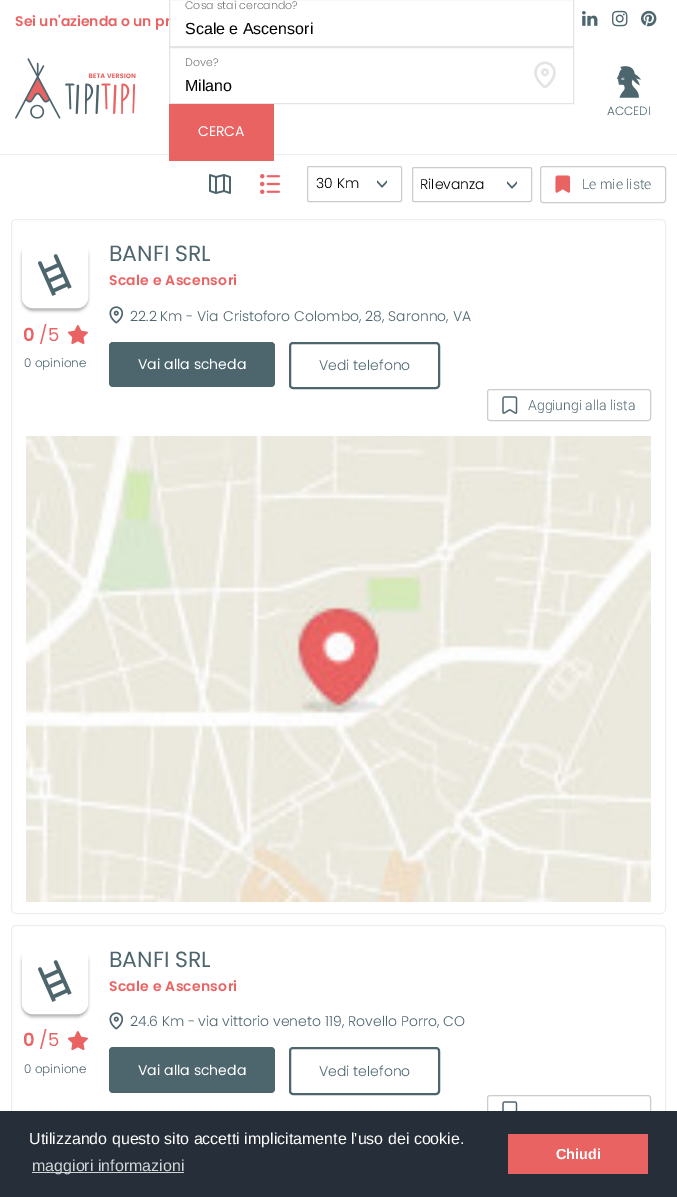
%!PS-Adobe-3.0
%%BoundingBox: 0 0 677 1197
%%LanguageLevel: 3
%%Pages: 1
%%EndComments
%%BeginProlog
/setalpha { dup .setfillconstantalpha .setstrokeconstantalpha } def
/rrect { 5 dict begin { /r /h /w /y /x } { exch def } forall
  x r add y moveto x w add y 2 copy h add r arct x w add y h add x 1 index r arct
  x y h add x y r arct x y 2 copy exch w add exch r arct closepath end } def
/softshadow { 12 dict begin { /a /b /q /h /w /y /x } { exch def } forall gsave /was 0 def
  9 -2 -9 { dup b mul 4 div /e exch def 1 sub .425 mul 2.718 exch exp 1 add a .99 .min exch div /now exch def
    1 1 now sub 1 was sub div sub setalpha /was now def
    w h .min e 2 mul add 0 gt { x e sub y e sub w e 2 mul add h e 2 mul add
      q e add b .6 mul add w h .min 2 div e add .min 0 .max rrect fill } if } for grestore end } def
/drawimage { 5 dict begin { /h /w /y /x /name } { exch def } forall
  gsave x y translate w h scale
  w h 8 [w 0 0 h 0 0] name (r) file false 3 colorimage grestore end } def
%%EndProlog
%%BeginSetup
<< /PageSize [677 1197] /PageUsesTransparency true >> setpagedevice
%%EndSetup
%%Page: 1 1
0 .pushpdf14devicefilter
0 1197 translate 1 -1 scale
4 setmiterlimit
1 setgray
0 0 677 1197 rectfill
0.925 0.937 0.937 setrgbcolor
0 154 677 1 rectfill
0.894 setgray
169.5 47.5 404 56 rectstroke
(images/1.raw) 534 61 22 27 drawimage
0.918 0.388 0.388 setrgbcolor
169 104 105 57 rectfill
(images/2.raw) 582 11 16 15 drawimage
(images/3.raw) 612 10 16 17 drawimage
(images/4.raw) 641 10 16 17 drawimage
(images/5.raw) 15 58 121 61 drawimage
(images/6.raw) 617 66 24 32 drawimage
(images/7.raw) 209 174 22 20 drawimage
(images/8.raw) 260 174 20 20 drawimage
0.8 setgray
307.5 166.5 94 35 1.5 rrect stroke
412.5 167.5 119 34 1.5 rrect stroke
540.5 166.5 125 36 2.5 rrect stroke
(images/9.raw) 555 175 16 18 drawimage
0.925 0.937 0.937 setrgbcolor
11.5 219.5 654 694 4.5 rrect stroke
0 setgray
22 245 66 66 11 1.5 0.3 softshadow
1 setgray
22 242 66 66 11 rrect fill
(images/10.raw) 38 254 34 42 drawimage
5 setlinewidth
24.5 244.5 61 61 8.5 rrect stroke
(images/11.raw) 67 325 21 20 drawimage
(images/12.raw) 109 306 14 18 drawimage
0.302 0.396 0.427 setrgbcolor
109 342 166 45 4 rrect fill
2 setlinewidth
290 343 149 45 3 rrect stroke
0.8 setgray
1 setlinewidth
487.5 389.5 163 31 2.5 rrect stroke
(images/13.raw) 502 396 16 18 drawimage
(images/14.raw) 26 436 625 466 drawimage
0.925 0.937 0.937 setrgbcolor
11.5 925.5 654 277 4.5 rrect stroke
0 setgray
22 951 66 66 11 1.5 0.3 softshadow
1 setgray
22 948 66 66 11 rrect fill
(images/10.raw) 38 960 34 42 drawimage
5 setlinewidth
24.5 950.5 61 61 8.5 rrect stroke
(images/11.raw) 67 1031 21 20 drawimage
(images/12.raw) 109 1012 14 18 drawimage
0.302 0.396 0.427 setrgbcolor
109 1047 166 46 4 rrect fill
2 setlinewidth
290 1048 149 46 3 rrect stroke
0.8 setgray
1 setlinewidth
487.5 1095.5 163 30 2.5 rrect stroke
(images/15.raw) 502 1101 16 10 drawimage
0.145 0.18 0.224 setrgbcolor
0 1111 677 86 rectfill
0.827 0.835 0.843 setrgbcolor
32 1172 152 1 rectfill
0.918 0.388 0.388 setrgbcolor
508 1134 140 40 rectfill
/Poppins-SemiBold [14 0 0 -14 0 0] selectfont
15 26 moveto (Sei un'azienda o un pr) show
0.894 setgray
169.5 -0.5 404 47 rectstroke
/Poppins-Light [11 0 0 -11 0 0] selectfont
0.467 setgray
185 9 moveto (Cosa stai cercando?) show
/LiberationSans-Regular [16 0 0 -16 0 0] selectfont
0 setgray
185 34 moveto (Scale e Ascensori) show
/Poppins-Light [11 0 0 -11 0 0] selectfont
0.467 setgray
185 66 moveto (Dove?) show
/LiberationSans-Regular [16 0 0 -16 0 0] selectfont
0 setgray
185 91 moveto (Milano) show
/Poppins-Regular [14 0 0 -14 0 0] selectfont
1 setgray
198 136 moveto (CERCA) show
/Poppins-Light [12 0 0 -12 0 0] selectfont
0.302 0.396 0.427 setrgbcolor
607 115 moveto (ACCEDI) show
/Poppins-Light [14 0 0 -14 0 0] selectfont
0 setgray
316 188 moveto (30 Km) show
/Poppins-Regular [22 0 0 -22 0 0] selectfont
0.302 0.396 0.427 setrgbcolor
gsave 374 178 translate 90 rotate 0 0 moveto (>) show grestore
/Poppins-Light [14 0 0 -14 0 0] selectfont
0 setgray
420 189 moveto (Rilevanza) show
/Poppins-Regular [22 0 0 -22 0 0] selectfont
0.302 0.396 0.427 setrgbcolor
gsave 504 179 translate 90 rotate 0 0 moveto (>) show grestore
/Roboto-Light [14 0 0 -14 0 0] selectfont
582 189 moveto (Le mie liste) show
/Poppins-SemiBold [18 0 0 -18 0 0] selectfont
0.918 0.388 0.388 setrgbcolor
23 341 moveto (0) show
/Poppins-Regular [18 0 0 -18 0 0] selectfont
39 341 moveto (/5) show
/Poppins-Light [12 0 0 -12 0 0] selectfont
0.302 0.396 0.427 setrgbcolor
24 367 moveto (0 opinione) show
/Poppins-Regular [22 0 0 -22 0 0] selectfont
109 261 moveto (BANFI SRL) show
/Poppins-SemiBold [14 0 0 -14 0 0] selectfont
0.918 0.388 0.388 setrgbcolor
109 285 moveto 0.25 0 (Scale e Ascensori) ashow
/Poppins-Light [14 0 0 -14 0 0] selectfont
0.302 0.396 0.427 setrgbcolor
130 321 moveto (22.2 Km -) show
197 321 moveto (Via Cristoforo Colombo, 28, Saronno, VA) show
/Poppins-Regular [14 0 0 -14 0 0] selectfont
1 setgray
138 369 moveto (Vai alla scheda) show
/Poppins-Light [14 0 0 -14 0 0] selectfont
0.302 0.396 0.427 setrgbcolor
319 370 moveto (Vedi telefono) show
/Roboto-Light [14 0 0 -14 0 0] selectfont
528 410 moveto (Aggiungi alla lista) show
/Poppins-SemiBold [18 0 0 -18 0 0] selectfont
0.918 0.388 0.388 setrgbcolor
23 1046 moveto (0) show
/Poppins-Regular [18 0 0 -18 0 0] selectfont
39 1046 moveto (/5) show
/Poppins-Light [12 0 0 -12 0 0] selectfont
0.302 0.396 0.427 setrgbcolor
24 1073 moveto (0 opinione) show
/Poppins-Regular [22 0 0 -22 0 0] selectfont
109 967 moveto (BANFI SRL) show
/Poppins-SemiBold [14 0 0 -14 0 0] selectfont
0.918 0.388 0.388 setrgbcolor
109 991 moveto 0.25 0 (Scale e Ascensori) ashow
/Poppins-Light [14 0 0 -14 0 0] selectfont
0.302 0.396 0.427 setrgbcolor
130 1026 moveto (24.6 Km -) show
198 1026 moveto (via vittorio veneto 119, Rovello Porro, CO) show
/Poppins-Regular [14 0 0 -14 0 0] selectfont
1 setgray
138 1075 moveto (Vai alla scheda) show
/Poppins-Light [14 0 0 -14 0 0] selectfont
0.302 0.396 0.427 setrgbcolor
319 1076 moveto (Vedi telefono) show
/LiberationSans-Regular [16 0 0 -16 0 0] selectfont
1 setgray
29 1144 moveto (Utilizzando questo sito accetti implicitamente l'uso dei cookie.) show
0.827 0.835 0.843 setrgbcolor
32 1171 moveto (maggiori informazioni) show
/LiberationSans-Bold [14.5 0 0 -14.5 0 0] selectfont
1 setgray
556 1159 moveto (Chiudi) show
.poppdf14devicefilter showpage
%%EOF
